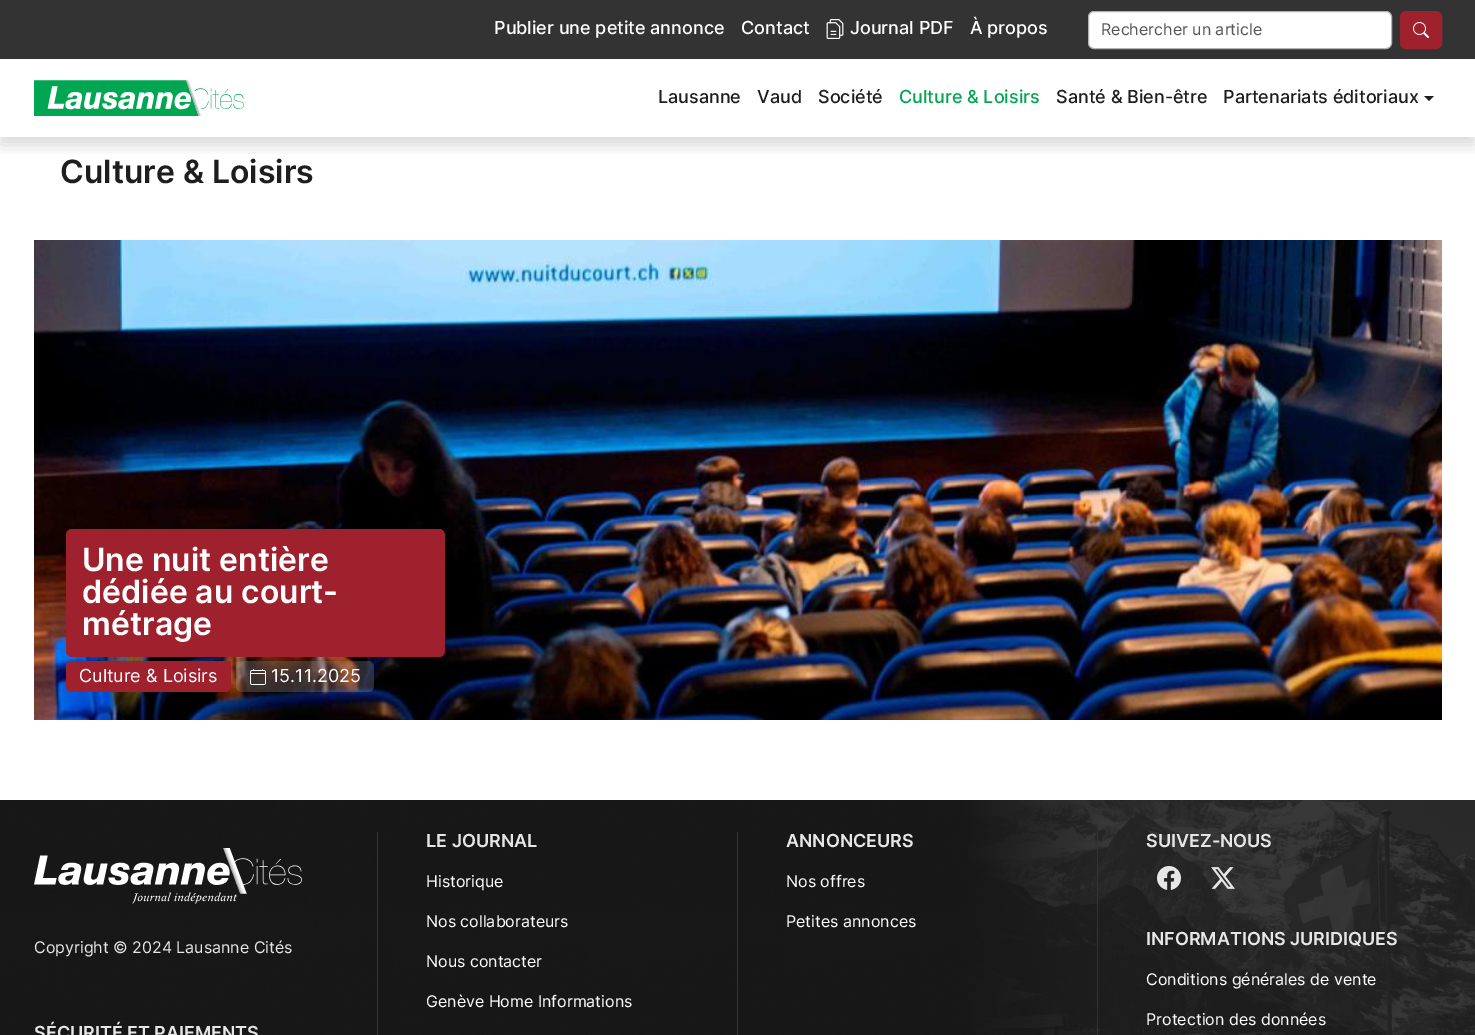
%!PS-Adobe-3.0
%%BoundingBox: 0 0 1475 1035
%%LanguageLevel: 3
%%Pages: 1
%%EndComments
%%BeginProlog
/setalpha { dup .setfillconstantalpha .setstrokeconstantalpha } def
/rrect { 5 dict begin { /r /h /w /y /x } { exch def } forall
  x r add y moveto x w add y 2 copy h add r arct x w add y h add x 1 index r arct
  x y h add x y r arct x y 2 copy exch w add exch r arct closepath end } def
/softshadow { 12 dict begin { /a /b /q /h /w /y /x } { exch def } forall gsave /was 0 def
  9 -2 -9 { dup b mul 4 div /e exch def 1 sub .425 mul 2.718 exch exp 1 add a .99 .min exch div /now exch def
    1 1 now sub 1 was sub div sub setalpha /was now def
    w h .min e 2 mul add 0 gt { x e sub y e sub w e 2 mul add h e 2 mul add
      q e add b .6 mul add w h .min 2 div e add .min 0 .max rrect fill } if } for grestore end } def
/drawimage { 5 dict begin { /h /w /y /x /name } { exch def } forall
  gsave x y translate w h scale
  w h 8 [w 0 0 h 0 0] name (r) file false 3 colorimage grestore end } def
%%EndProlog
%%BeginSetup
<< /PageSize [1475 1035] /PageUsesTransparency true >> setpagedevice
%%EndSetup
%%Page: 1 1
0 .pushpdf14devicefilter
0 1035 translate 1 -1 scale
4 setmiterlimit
1 setgray
0 0 1475 1035 rectfill
gsave
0 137 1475 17 rectclip
0 setgray
0 8 1475 137 0 8 0.15 softshadow
grestore
0.2 setgray
0 0 1475 59 rectfill
(images/1.raw) 826 19 18 20 drawimage
1 setgray
1088.5 11.5 303 37 5.5 rrect gsave fill grestore
0.702 setgray
stroke
0.627 0.129 0.18 setrgbcolor
1400.5 11.5 41 37 5.5 rrect gsave fill grestore
stroke
(images/2.raw) 1413 22 16 16 drawimage
(images/3.raw) 34 80 210 36 drawimage
0.118 setgray
newpath 1424 96 moveto 1434 96 lineto 1429 101 lineto closepath fill
(images/4.raw) 34 240 1408 480 drawimage
0.627 0.129 0.18 setrgbcolor
66 529 379 128 6 rrect fill
newpath 72 661 moveto 231 661 lineto 231 686 lineto 231 689.5 228.5 692 225 692 curveto 72 692 lineto 68.5 692 66 689.5 66 686 curveto 66 667 lineto 66 663.5 68.5 661 72 661 curveto closepath fill
0.3 setalpha
0.549 setgray
236 661 138 31 6 rrect fill
1 setalpha
(images/5.raw) 250 669 16 16 drawimage
(images/6.raw) 0 800 1475 235 drawimage
0.2 setgray
377 832 1 203 rectfill
(images/7.raw) 34 848 268 56 drawimage
737 832 1 203 rectfill
1097 832 1 203 rectfill
(images/8.raw) 1157 866 24 24 drawimage
(images/9.raw) 1211 867 24 22 drawimage
/Inter-Medium [18 0 0 -18 0 0] selectfont
1 setgray
494 34 moveto (Publier une petite annonce) show
741 34 moveto (Contact) show
850 34 moveto (Journal PDF) show
970 34 moveto (À propos) show
/Inter-Regular [16 0 0 -16 0 0] selectfont
0.337 setgray
1101 35 moveto (Rechercher un article) show
/Inter-Medium [18 0 0 -18 0 0] selectfont
0.118 setgray
658 103 moveto (Lausanne) show
757 103 moveto (Vaud) show
818 103 moveto (Société) show
0 0.651 0.318 setrgbcolor
899 103 moveto (Culture & Loisirs) show
0.118 setgray
1056 103 moveto (Santé & Bien-être) show
1223 103 moveto (Partenariats éditoriaux) show
/Inter-SemiBold [32 0 0 -32 0 0] selectfont
60 183 moveto (Culture & Loisirs) show
1 setgray
82 571 moveto (Une nuit entière) show
82 603 moveto (dédiée au court-) show
82 635 moveto (métrage) show
/Inter-Regular [18 0 0 -18 0 0] selectfont
79 682 moveto (Culture & Loisirs) show
271 682 moveto (15.11.2025) show
/Inter-Regular [16 0 0 -16 0 0] selectfont
0.902 setgray
34 953 moveto (Copyright © 2024 Lausanne Cités) show
/Inter-SemiBold [18 0 0 -18 0 0] selectfont
34 1039 moveto (SÉCURITÉ ET PAIEMENTS) show
426 847 moveto (LE JOURNAL) show
/Inter-Regular [16 0 0 -16 0 0] selectfont
1 setgray
426 887 moveto (Historique) show
426 927 moveto (Nos collaborateurs) show
426 967 moveto (Nous contacter) show
426 1007 moveto (Genève Home Informations) show
/Inter-SemiBold [18 0 0 -18 0 0] selectfont
0.902 setgray
786 847 moveto (ANNONCEURS) show
/Inter-Regular [16 0 0 -16 0 0] selectfont
1 setgray
786 887 moveto (Nos offres) show
786 927 moveto (Petites annonces) show
/Inter-SemiBold [18 0 0 -18 0 0] selectfont
0.902 setgray
1146 847 moveto (SUIVEZ-NOUS) show
1146 945 moveto (INFORMATIONS JURIDIQUES) show
/Inter-Regular [16 0 0 -16 0 0] selectfont
1 setgray
1146 985 moveto (Conditions générales de vente) show
1146 1025 moveto (Protection des données) show
.poppdf14devicefilter showpage
%%EOF
